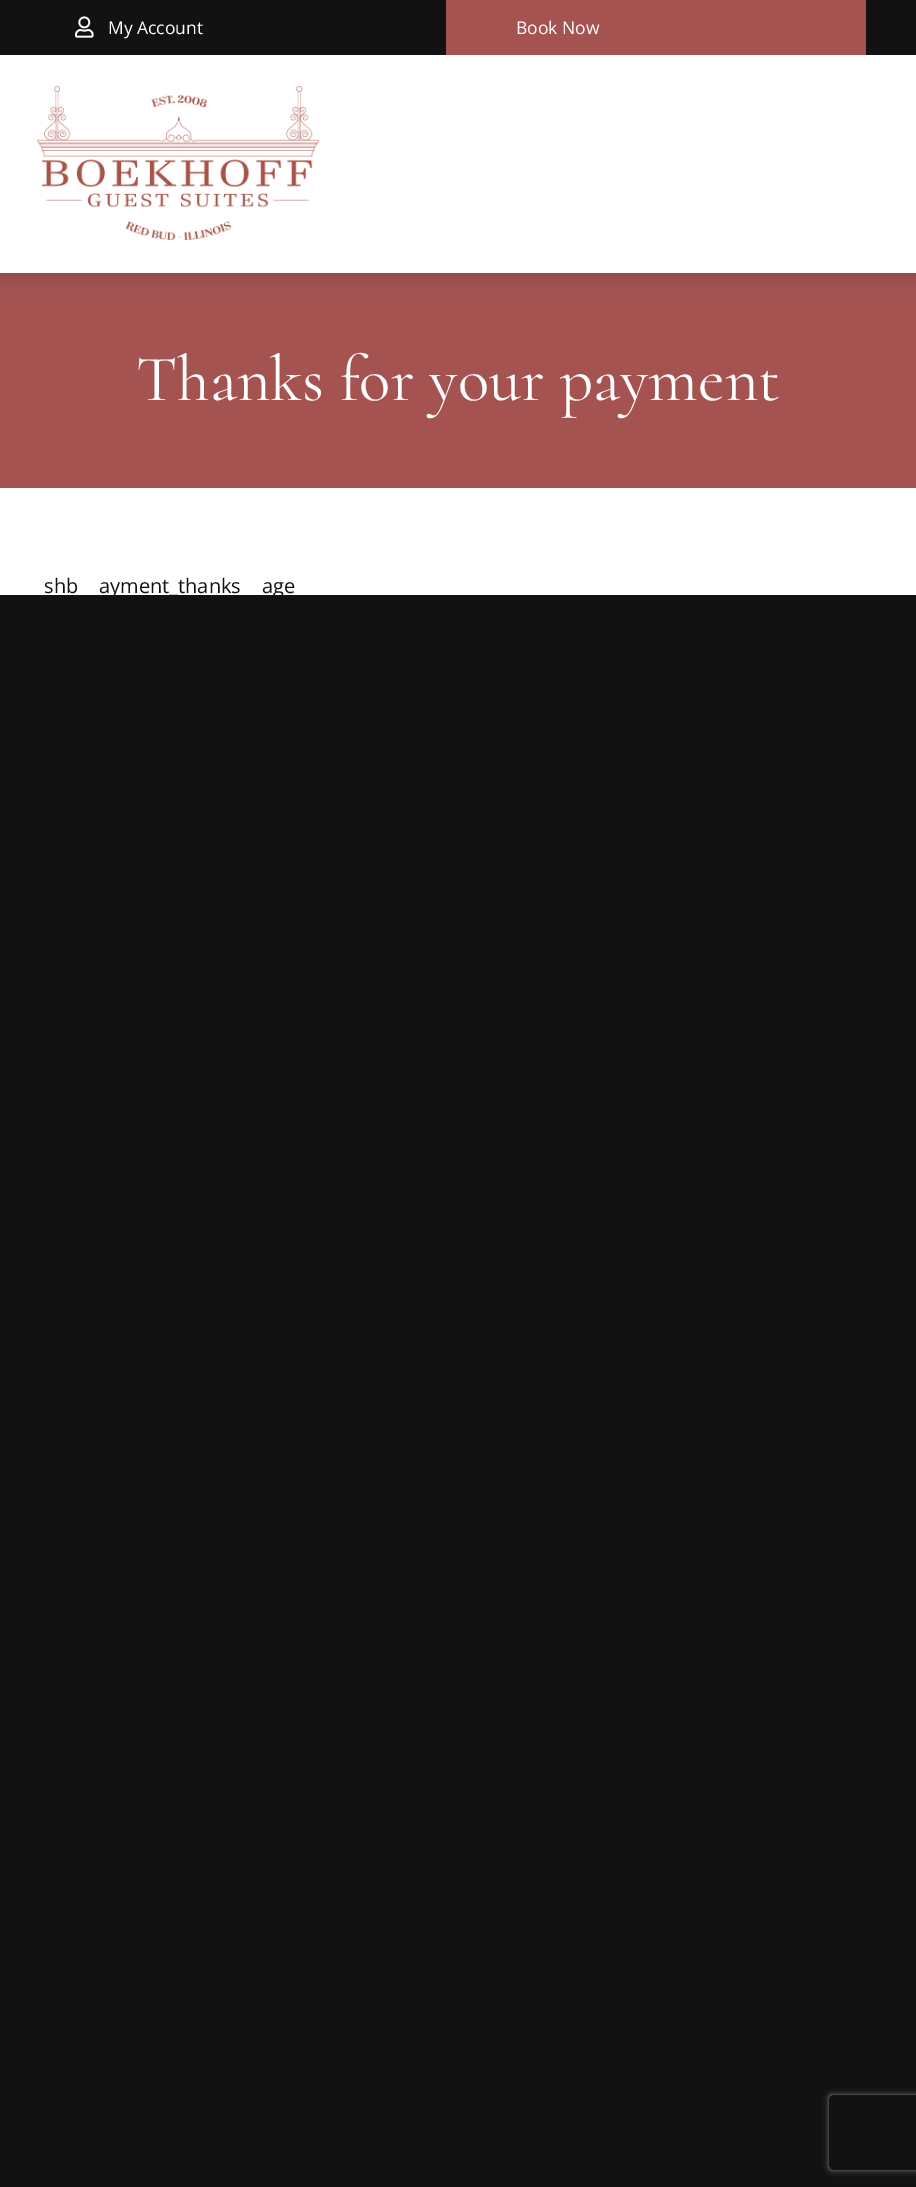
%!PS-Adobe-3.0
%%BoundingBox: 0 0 916 2187
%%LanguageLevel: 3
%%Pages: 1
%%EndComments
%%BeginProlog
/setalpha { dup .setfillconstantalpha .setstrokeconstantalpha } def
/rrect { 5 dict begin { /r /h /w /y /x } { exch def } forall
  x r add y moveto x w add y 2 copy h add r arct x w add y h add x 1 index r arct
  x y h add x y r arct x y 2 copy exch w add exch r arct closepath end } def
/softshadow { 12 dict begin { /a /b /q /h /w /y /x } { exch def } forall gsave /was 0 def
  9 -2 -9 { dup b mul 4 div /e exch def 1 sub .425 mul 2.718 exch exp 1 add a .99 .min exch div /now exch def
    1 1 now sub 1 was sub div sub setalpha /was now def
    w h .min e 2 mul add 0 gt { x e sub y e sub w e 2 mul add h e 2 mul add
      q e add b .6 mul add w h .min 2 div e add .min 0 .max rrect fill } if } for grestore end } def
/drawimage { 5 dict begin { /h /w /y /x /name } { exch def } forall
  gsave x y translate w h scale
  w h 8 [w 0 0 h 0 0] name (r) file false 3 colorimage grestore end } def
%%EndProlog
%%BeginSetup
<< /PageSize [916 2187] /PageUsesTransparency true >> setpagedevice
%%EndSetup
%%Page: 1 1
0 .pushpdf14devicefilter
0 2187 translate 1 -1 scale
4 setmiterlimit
1 setgray
0 0 916 2187 rectfill
0.647 0.325 0.318 setrgbcolor
0 273 916 215 rectfill
0 setgray
-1 5 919 275 0 6 0.1 softshadow
1 setgray
0 55 916 218 rectfill
0.071 setgray
0 0 916 55 rectfill
(images/1.raw) 75 16 19 22 drawimage
0.647 0.325 0.318 setrgbcolor
446 0 420 55 rectfill
(images/2.raw) 37 86 282 154 drawimage
0.071 setgray
0 595 916 1592 rectfill
gsave
newpath 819 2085 moveto 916 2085 lineto 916 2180 lineto 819 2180 lineto closepath 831.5 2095 moveto 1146.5 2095 lineto 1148 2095 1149 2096 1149 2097.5 curveto 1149 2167.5 lineto 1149 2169 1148 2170 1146.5 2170 curveto 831.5 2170 lineto 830 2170 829 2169 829 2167.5 curveto 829 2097.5 lineto 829 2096 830 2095 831.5 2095 curveto closepath eoclip newpath
0.502 setgray
829 2095 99 75 2.5 3 1 softshadow
grestore
/OpenSans-Regular [17.5 0 0 -17.5 0 0] selectfont
1 setgray
108 34 moveto (My Account) show
516 34 moveto (Book Now) show
/Cormorant-Regular [65 0 0 -65 0 0] selectfont
136 400 moveto (Thanks for your payment) show
/OpenSans-Regular [20 0 0 -20 0 0] selectfont
0.071 setgray
44 593 moveto (shb) show
99 593 moveto (ayment_thanks) show
262 593 moveto (age) show
.poppdf14devicefilter showpage
%%EOF
